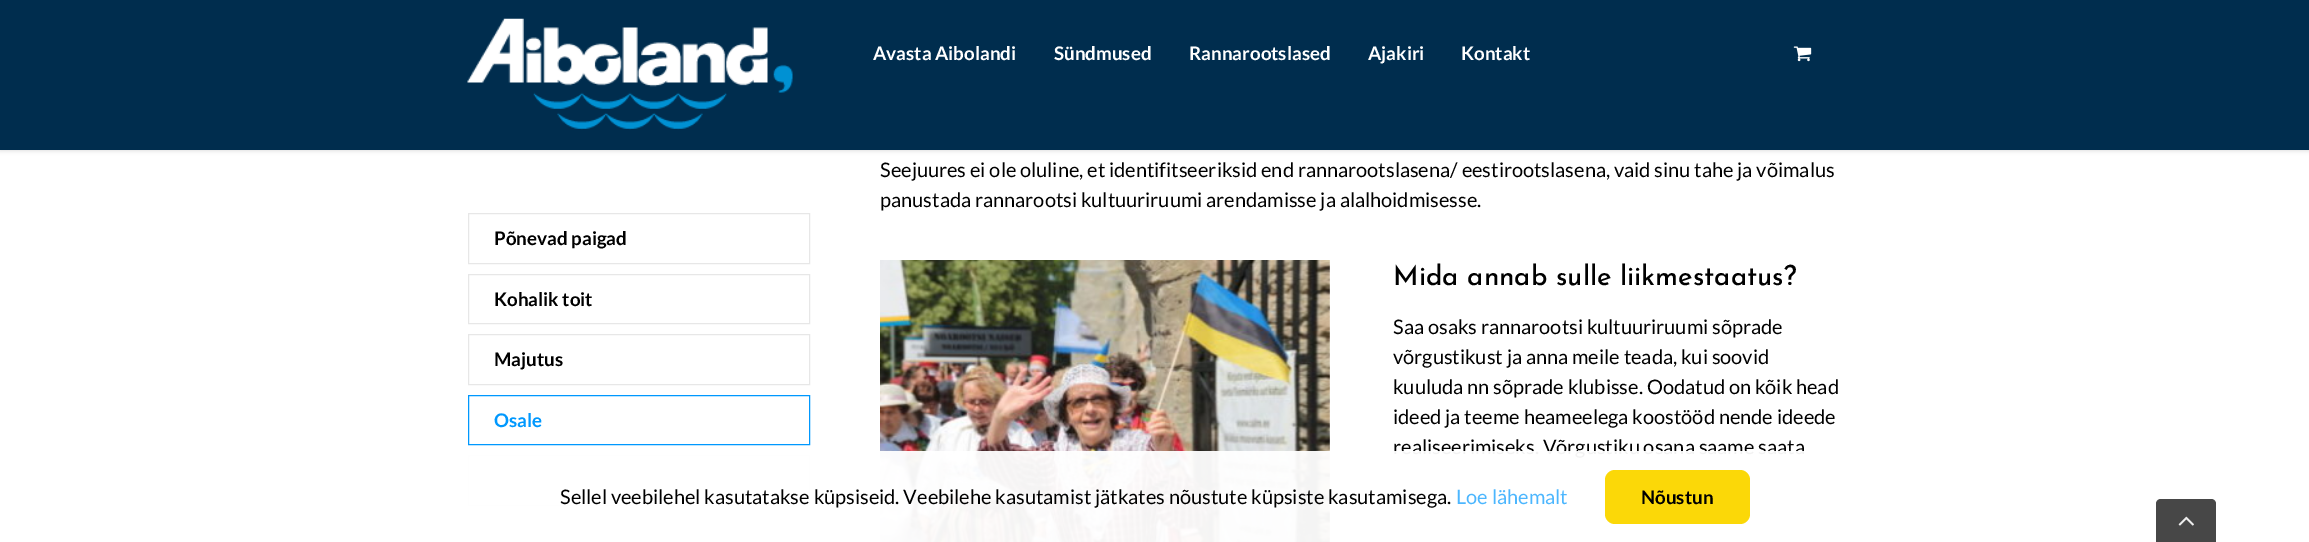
%!PS-Adobe-3.0
%%BoundingBox: 0 0 2309 542
%%LanguageLevel: 3
%%Pages: 1
%%EndComments
%%BeginProlog
/setalpha { dup .setfillconstantalpha .setstrokeconstantalpha } def
/rrect { 5 dict begin { /r /h /w /y /x } { exch def } forall
  x r add y moveto x w add y 2 copy h add r arct x w add y h add x 1 index r arct
  x y h add x y r arct x y 2 copy exch w add exch r arct closepath end } def
/softshadow { 12 dict begin { /a /b /q /h /w /y /x } { exch def } forall gsave /was 0 def
  9 -2 -9 { dup b mul 4 div /e exch def 1 sub .425 mul 2.718 exch exp 1 add a .99 .min exch div /now exch def
    1 1 now sub 1 was sub div sub setalpha /was now def
    w h .min e 2 mul add 0 gt { x e sub y e sub w e 2 mul add h e 2 mul add
      q e add b .6 mul add w h .min 2 div e add .min 0 .max rrect fill } if } for grestore end } def
/drawimage { 5 dict begin { /h /w /y /x /name } { exch def } forall
  gsave x y translate w h scale
  w h 8 [w 0 0 h 0 0] name (r) file false 3 colorimage grestore end } def
%%EndProlog
%%BeginSetup
<< /PageSize [2309 542] /PageUsesTransparency true >> setpagedevice
%%EndSetup
%%Page: 1 1
0 .pushpdf14devicefilter
0 542 translate 1 -1 scale
4 setmiterlimit
1 setgray
0 0 2309 542 rectfill
0 setgray
0 1 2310 150 0 2 0.12 softshadow
0 0.176 0.306 setrgbcolor
0 0 2309 150 rectfill
(images/1.raw) 467 18 326 112 drawimage
(images/2.raw) 1793 46 19 16 drawimage
0.906 setgray
468.5 213.5 341 50 rectstroke
468.5 274.5 341 49 rectstroke
468.5 334.5 341 50 rectstroke
0 0.596 0.996 setrgbcolor
468.5 395.5 341 49 rectstroke
0.906 setgray
468.5 455.5 341 50 rectstroke
(images/3.raw) 880 260 450 282 drawimage
0.278 setgray
newpath 2161 499 moveto 2211 499 lineto 2214 499 2216 501 2216 504 curveto 2216 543 lineto 2156 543 lineto 2156 504 lineto 2156 501 2158 499 2161 499 curveto closepath fill
(images/4.raw) 2178 516 16 10 drawimage
/Lato-Bold [18.75 0 0 -18.75 0 0] selectfont
1 setgray
873 60 moveto (Avasta Aibolandi) show
1054 60 moveto (Sündmused) show
1189 60 moveto (Rannarootslased) show
1368 60 moveto (Ajakiri) show
1461 60 moveto (Kontakt) show
0 setgray
494 245 moveto (Põnevad paigad) show
494 306 moveto (Kohalik toit) show
494 366 moveto (Majutus) show
0 0.596 0.996 setrgbcolor
494 427 moveto (Osale) show
/Lato-Regular [20 0 0 -20 0 0] selectfont
0 setgray
880 177 moveto (Seejuures ei ole oluline, et identifitseeriksid end rannarootslasena/ eestirootslasena, vaid sinu tahe ja võimalus) show
880 207 moveto (panustada rannarootsi kultuuriruumi arendamisse ja alalhoidmisesse.) show
/JosefinSans-Medium [27.5 0 0 -27.5 0 0] selectfont
1393 285 moveto (Mida annab sulle liikmestaatus?) show
/Lato-Regular [20 0 0 -20 0 0] selectfont
1393 334 moveto (Saa osaks rannarootsi kultuuriruumi sõprade) show
1393 364 moveto (võrgustikust ja anna meile teada, kui soovid) show
1393 394 moveto (kuuluda nn sõprade klubisse. Oodatud on kõik head) show
1393 424 moveto (ideed ja teeme heameelega koostööd nende ideede) show
1393 454 moveto (realiseerimiseks. Võrgustiku osana saame saata) show
0.95 setalpha
1 setgray
468 451 1336 91 rectfill
1 setalpha
0 setgray
560 504 moveto (Sellel veebilehel kasutatakse küpsiseid. Veebilehe kasutamist jätkates nõustute küpsiste kasutamisega.) show
0.298 0.714 0.996 setrgbcolor
1456 504 moveto (Loe lähemalt) show
0.984 0.847 0.031 setrgbcolor
1605 470 145 54 10 rrect fill
/Lato-Bold [18.75 0 0 -18.75 0 0] selectfont
0 setgray
1641 504 moveto (Nõustun) show
.poppdf14devicefilter showpage
%%EOF
